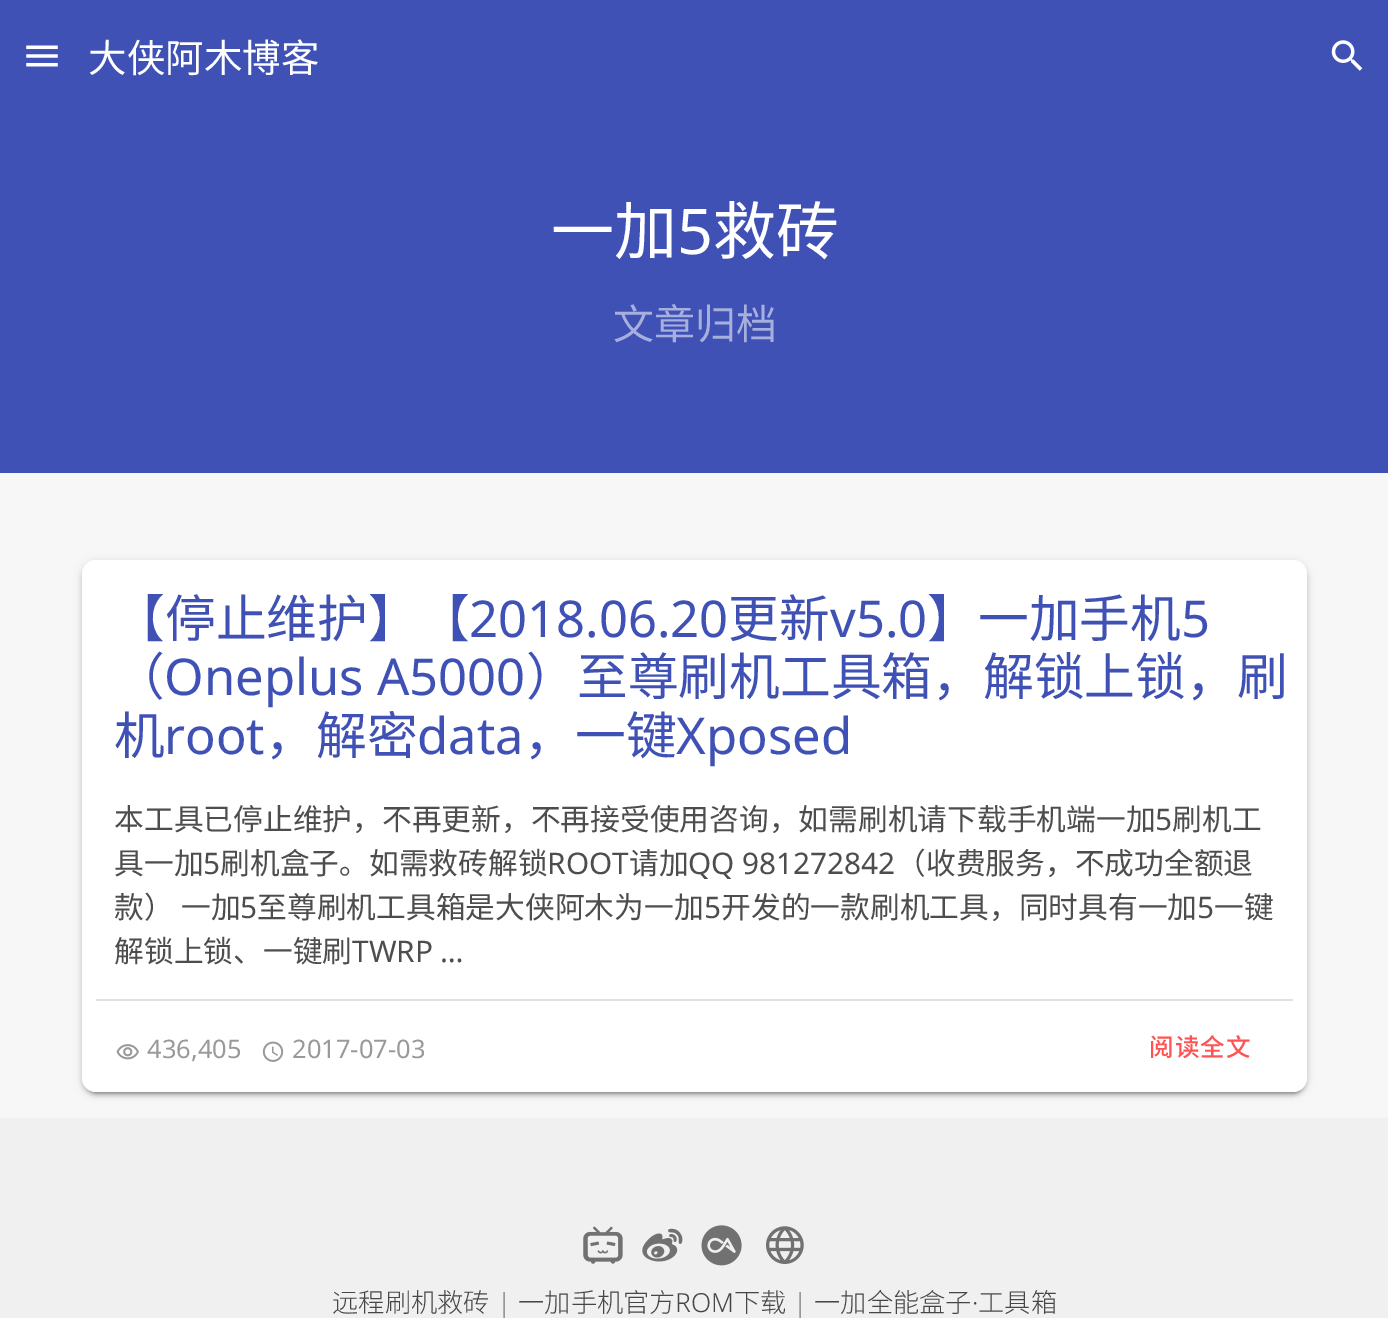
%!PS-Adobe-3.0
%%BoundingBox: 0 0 1388 1318
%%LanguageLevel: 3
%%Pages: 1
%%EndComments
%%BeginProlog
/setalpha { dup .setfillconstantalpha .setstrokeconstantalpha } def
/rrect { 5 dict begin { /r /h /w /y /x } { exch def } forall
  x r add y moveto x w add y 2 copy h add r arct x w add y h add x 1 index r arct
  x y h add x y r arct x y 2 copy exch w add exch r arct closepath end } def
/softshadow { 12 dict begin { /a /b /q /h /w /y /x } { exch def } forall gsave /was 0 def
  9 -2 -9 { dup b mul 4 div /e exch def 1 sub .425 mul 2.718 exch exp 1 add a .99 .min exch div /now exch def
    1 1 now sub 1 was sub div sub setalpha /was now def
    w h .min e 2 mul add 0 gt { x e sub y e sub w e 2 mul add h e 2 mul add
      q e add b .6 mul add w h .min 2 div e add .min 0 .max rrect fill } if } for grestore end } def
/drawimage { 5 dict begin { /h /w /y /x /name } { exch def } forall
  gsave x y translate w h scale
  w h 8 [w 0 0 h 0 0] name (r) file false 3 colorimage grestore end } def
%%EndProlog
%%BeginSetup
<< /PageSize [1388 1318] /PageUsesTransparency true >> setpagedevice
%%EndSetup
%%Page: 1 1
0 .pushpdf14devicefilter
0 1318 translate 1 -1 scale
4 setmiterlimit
0.969 setgray
0 0 1388 1318 rectfill
0.247 0.318 0.71 setrgbcolor
0 0 1388 473 rectfill
(images/1.raw) 26 45 32 22 drawimage
(images/2.raw) 1331 40 32 31 drawimage
0 setgray
82 562 1225 532 14 4.5 0.12 softshadow
82 564 1225 532 14 2 0.14 softshadow
86 569 1218 525 11 1 0.2 softshadow
1 setgray
82 560 1225 532 14 rrect fill
0.878 setgray
96 999 1197 2 rectfill
(images/3.raw) 116 1044 23 16 drawimage
(images/4.raw) 262 1041 22 21 drawimage
0.941 setgray
0 1118 1388 200 rectfill
(images/5.raw) 583 1226 40 38 drawimage
(images/6.raw) 642 1228 41 34 drawimage
(images/7.raw) 701 1225 41 41 drawimage
(images/8.raw) 766 1226 38 38 drawimage
/NotoSansCJKSC-Regular [38.5 0 0 -38.5 0 0] selectfont
1 setgray
88 72 moveto (大侠阿木博客) show
/NotoSansCJKSC-Regular [63 0 0 -63 0 0] selectfont
551 254 moveto (一加) show
/NotoSans-Regular [63 0 0 -63 0 0] selectfont
677 254 moveto (5) show
/NotoSansCJKSC-Regular [63 0 0 -63 0 0] selectfont
713 254 moveto (救砖) show
/NotoSansCJKSC-Regular [41 0 0 -41 0 0] selectfont
0.655 0.686 0.867 setrgbcolor
613 339 moveto (文章归档) show
/NotoSansCJKSC-Regular [50.75 0 0 -50.75 0 0] selectfont
0.247 0.318 0.71 setrgbcolor
114 637 moveto (【停止维护】【) show
/NotoSans-Regular [50.75 0 0 -50.75 0 0] selectfont
469 637 moveto (2018.06.20) show
/NotoSansCJKSC-Regular [50.75 0 0 -50.75 0 0] selectfont
728 637 moveto (更新) show
/NotoSans-Regular [50.75 0 0 -50.75 0 0] selectfont
830 637 moveto (v5.0) show
/NotoSansCJKSC-Regular [50.75 0 0 -50.75 0 0] selectfont
927 637 moveto (】一加手机) show
/NotoSans-Regular [50.75 0 0 -50.75 0 0] selectfont
1181 637 moveto (5) show
/NotoSansCJKSC-Regular [50.75 0 0 -50.75 0 0] selectfont
114 695 moveto (（) show
/NotoSans-Regular [50.75 0 0 -50.75 0 0] selectfont
164 695 moveto (Oneplus A5000) show
/NotoSansCJKSC-Regular [50.75 0 0 -50.75 0 0] selectfont
526 695 moveto (）至尊刷机工具箱，解锁上锁，刷) show
114 754 moveto (机) show
/NotoSans-Regular [50.75 0 0 -50.75 0 0] selectfont
164 754 moveto (root) show
/NotoSansCJKSC-Regular [50.75 0 0 -50.75 0 0] selectfont
265 754 moveto (，解密) show
/NotoSans-Regular [50.75 0 0 -50.75 0 0] selectfont
417 754 moveto (data) show
/NotoSansCJKSC-Regular [50.75 0 0 -50.75 0 0] selectfont
524 754 moveto (，一键) show
/NotoSans-Regular [50.75 0 0 -50.75 0 0] selectfont
676 754 moveto (Xposed) show
/NotoSansCJKSC-Regular [29.75 0 0 -29.75 0 0] selectfont
0.302 setgray
114 830 moveto (本工具已停止维护，不再更新，不再接受使用咨询，如需刷机请下载手机端一加) show
/NotoSans-Regular [29.75 0 0 -29.75 0 0] selectfont
1155 830 moveto (5) show
/NotoSansCJKSC-Regular [29.75 0 0 -29.75 0 0] selectfont
1172 830 moveto (刷机工) show
114 874 moveto (具一加) show
/NotoSans-Regular [29.75 0 0 -29.75 0 0] selectfont
203 874 moveto (5) show
/NotoSansCJKSC-Regular [29.75 0 0 -29.75 0 0] selectfont
220 874 moveto (刷机盒子。如需救砖解锁) show
/NotoSans-Regular [29.75 0 0 -29.75 0 0] selectfont
547 874 moveto (ROOT) show
/NotoSansCJKSC-Regular [29.75 0 0 -29.75 0 0] selectfont
629 874 moveto (请加) show
/NotoSans-Regular [29.75 0 0 -29.75 0 0] selectfont
688 874 moveto (QQ 981272842) show
/NotoSansCJKSC-Regular [29.75 0 0 -29.75 0 0] selectfont
896 874 moveto (（收费服务，不成功全额退) show
114 918 moveto 1 0 32 (款） 一加) widthshow
/NotoSans-Regular [29.75 0 0 -29.75 0 0] selectfont
240 918 moveto (5) show
/NotoSansCJKSC-Regular [29.75 0 0 -29.75 0 0] selectfont
257 918 moveto (至尊刷机工具箱是大侠阿木为一加) show
/NotoSans-Regular [29.75 0 0 -29.75 0 0] selectfont
704 918 moveto (5) show
/NotoSansCJKSC-Regular [29.75 0 0 -29.75 0 0] selectfont
721 918 moveto (开发的一款刷机工具，同时具有一加) show
/NotoSans-Regular [29.75 0 0 -29.75 0 0] selectfont
1197 918 moveto (5) show
/NotoSansCJKSC-Regular [29.75 0 0 -29.75 0 0] selectfont
1214 918 moveto (一键) show
114 962 moveto (解锁上锁、一键刷) show
/NotoSans-Regular [29.75 0 0 -29.75 0 0] selectfont
352 962 moveto (TWRP …) show
/NotoSans-Regular [25.5 0 0 -25.5 0 0] selectfont
0.6 setgray
147 1058 moveto (436,405) show
292 1058 moveto (2017-07-03) show
/NotoSansCJKSC-Medium [24.5 0 0 -24.5 0 0] selectfont
1 0.322 0.322 setrgbcolor
1149 1056 moveto 1 0 (阅读全文) ashow
/NotoSansCJKSC-Light [26.25 0 0 -26.25 0 0] selectfont
0.275 setgray
332 1312 moveto (远程刷机救砖) show
/NotoSans-Light [26.25 0 0 -26.25 0 0] selectfont
0.471 setgray
497 1312 moveto (|) show
/NotoSansCJKSC-Light [26.25 0 0 -26.25 0 0] selectfont
0.275 setgray
518 1312 moveto (一加手机官方) show
/NotoSans-Light [26.25 0 0 -26.25 0 0] selectfont
675 1312 moveto (ROM) show
/NotoSansCJKSC-Light [26.25 0 0 -26.25 0 0] selectfont
734 1312 moveto (下载) show
/NotoSans-Light [26.25 0 0 -26.25 0 0] selectfont
0.471 setgray
793 1312 moveto (|) show
/NotoSansCJKSC-Light [26.25 0 0 -26.25 0 0] selectfont
0.275 setgray
814 1312 moveto (一加全能盒子) show
/NotoSans-Light [26.25 0 0 -26.25 0 0] selectfont
972 1312 moveto (·) show
/NotoSansCJKSC-Light [26.25 0 0 -26.25 0 0] selectfont
978 1312 moveto (工具箱) show
.poppdf14devicefilter showpage
%%EOF
